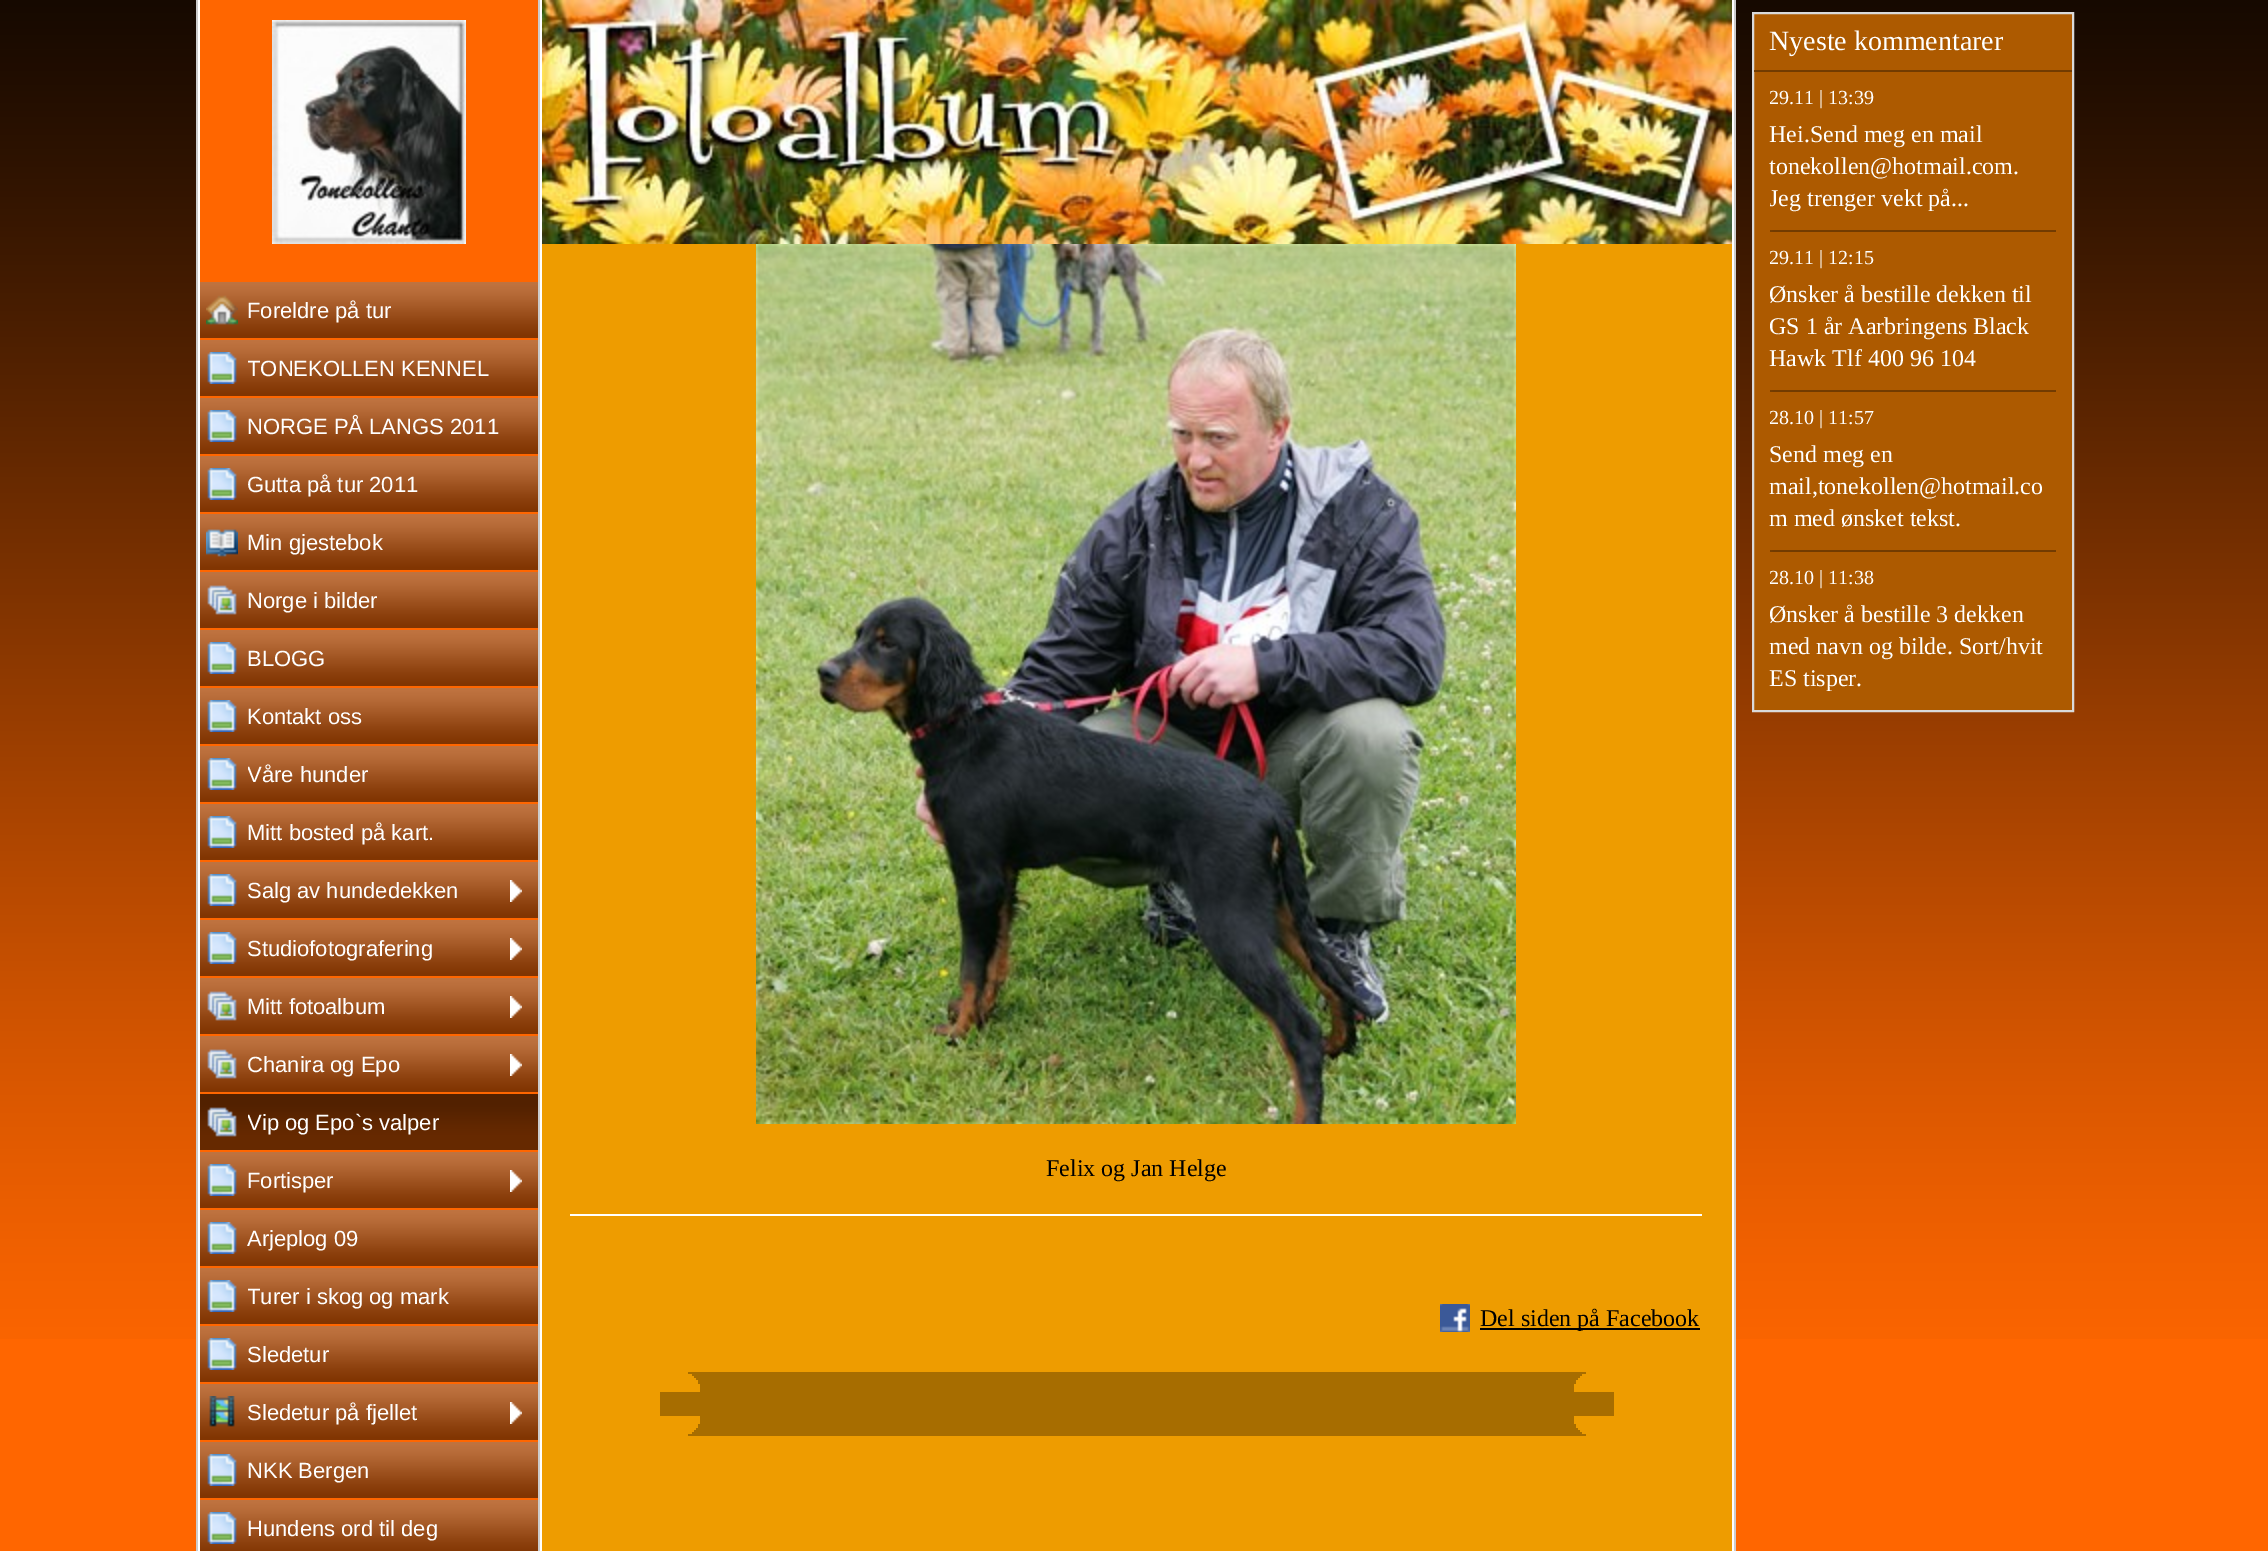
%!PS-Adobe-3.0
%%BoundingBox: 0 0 2268 1551
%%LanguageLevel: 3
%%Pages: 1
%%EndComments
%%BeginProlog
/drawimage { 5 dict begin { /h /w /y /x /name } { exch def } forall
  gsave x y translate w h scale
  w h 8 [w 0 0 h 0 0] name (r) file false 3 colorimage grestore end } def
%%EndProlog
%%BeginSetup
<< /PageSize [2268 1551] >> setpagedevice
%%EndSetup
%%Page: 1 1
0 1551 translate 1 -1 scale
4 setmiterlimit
1 0.4 0 setrgbcolor
0 0 2268 1551 rectfill
(images/1.raw) 0 0 2268 1339 drawimage
1 setgray
198 0 1536 1551 rectfill
0.8 setgray
196 0 2 1551 rectfill
1 0.4 0 setrgbcolor
200 0 338 1551 rectfill
(images/2.raw) 272 20 194 224 drawimage
(images/3.raw) 200 282 338 56 drawimage
(images/4.raw) 206 295 32 30 drawimage
(images/3.raw) 200 340 338 56 drawimage
(images/5.raw) 207 352 30 32 drawimage
(images/3.raw) 200 398 338 56 drawimage
(images/5.raw) 207 410 30 32 drawimage
(images/3.raw) 200 456 338 56 drawimage
(images/5.raw) 207 468 30 32 drawimage
(images/3.raw) 200 514 338 56 drawimage
(images/6.raw) 206 529 32 28 drawimage
(images/3.raw) 200 572 338 56 drawimage
(images/7.raw) 207 585 30 30 drawimage
(images/3.raw) 200 630 338 56 drawimage
(images/5.raw) 207 642 30 32 drawimage
(images/3.raw) 200 688 338 56 drawimage
(images/5.raw) 207 700 30 32 drawimage
(images/3.raw) 200 746 338 56 drawimage
(images/5.raw) 207 758 30 32 drawimage
(images/3.raw) 200 804 338 56 drawimage
(images/5.raw) 207 816 30 32 drawimage
(images/3.raw) 200 862 338 56 drawimage
(images/5.raw) 207 874 30 32 drawimage
(images/8.raw) 510 880 12 22 drawimage
(images/3.raw) 200 920 338 56 drawimage
(images/5.raw) 207 932 30 32 drawimage
(images/8.raw) 510 938 12 22 drawimage
(images/3.raw) 200 978 338 56 drawimage
(images/7.raw) 207 991 30 30 drawimage
(images/8.raw) 510 996 12 22 drawimage
(images/3.raw) 200 1036 338 56 drawimage
(images/7.raw) 207 1049 30 30 drawimage
(images/8.raw) 510 1054 12 22 drawimage
(images/9.raw) 200 1094 338 56 drawimage
(images/10.raw) 207 1107 30 30 drawimage
(images/3.raw) 200 1152 338 56 drawimage
(images/5.raw) 207 1164 30 32 drawimage
(images/8.raw) 510 1170 12 22 drawimage
(images/3.raw) 200 1210 338 56 drawimage
(images/5.raw) 207 1222 30 32 drawimage
(images/3.raw) 200 1268 338 56 drawimage
(images/5.raw) 207 1280 30 32 drawimage
(images/3.raw) 200 1326 338 56 drawimage
(images/5.raw) 207 1338 30 32 drawimage
(images/3.raw) 200 1384 338 56 drawimage
(images/11.raw) 209 1396 26 31 drawimage
(images/8.raw) 510 1402 12 22 drawimage
(images/3.raw) 200 1442 338 56 drawimage
(images/5.raw) 207 1454 30 32 drawimage
(images/12.raw) 200 1500 338 51 drawimage
(images/5.raw) 207 1512 30 32 drawimage
0.8 setgray
538 0 2 1551 rectfill
0.933 0.612 0 setrgbcolor
542 244 1190 1307 rectfill
(images/13.raw) 542 0 1190 244 drawimage
(images/14.raw) 756 244 760 880 drawimage
1 setgray
570 1214 1132 2 rectfill
(images/15.raw) 1440 1304 30 28 drawimage
0 setgray
1480 1328 220 2 rectfill
0.655 0.427 0 setrgbcolor
660 1372 954 64 rectfill
0.933 0.612 0 setrgbcolor
1586 1372 28 2 rectfill
660 1372 28 2 rectfill
1582 1374 32 2 rectfill
660 1374 32 2 rectfill
1580 1376 34 2 rectfill
660 1376 34 2 rectfill
1578 1378 36 2 rectfill
660 1378 36 2 rectfill
1576 1380 38 4 rectfill
660 1380 38 4 rectfill
1574 1384 40 8 rectfill
660 1384 40 8 rectfill
1574 1416 40 8 rectfill
660 1416 40 8 rectfill
1576 1424 38 4 rectfill
660 1424 38 4 rectfill
1578 1428 36 2 rectfill
660 1428 36 2 rectfill
1580 1430 34 2 rectfill
660 1430 34 2 rectfill
1582 1432 32 2 rectfill
660 1432 32 2 rectfill
1586 1434 28 2 rectfill
660 1434 28 2 rectfill
0.8 setgray
1734 0 2 1551 rectfill
0.678 0.353 0 setrgbcolor
newpath 1753 13 moveto 2073 13 lineto 2073 711 lineto 1753 711 lineto closepath gsave fill grestore
0.855 setgray
2 setlinewidth
stroke
(images/16.raw) 1754 70 318 2 drawimage
(images/17.raw) 1770 230 286 2 drawimage
(images/17.raw) 1770 390 286 2 drawimage
(images/17.raw) 1770 550 286 2 drawimage
/LiberationSans-Regular [22 0 0 -22 0 0] selectfont
1 setgray
247 318 moveto (Foreldre på tur) show
gsave
248 354 256 28 rectclip
247 376 moveto (TONEKOLLEN KENNEL) show
grestore
247 434 moveto (NORGE PÅ LANGS 2011) show
247 492 moveto (Gutta på tur 2011) show
247 550 moveto (Min gjestebok) show
247 608 moveto (Norge i bilder) show
247 666 moveto (BLOGG) show
247 724 moveto (Kontakt oss) show
gsave
248 760 256 28 rectclip
247 782 moveto (Våre hunder) show
grestore
247 840 moveto (Mitt bosted på kart.) show
247 898 moveto (Salg av hundedekken) show
247 956 moveto (Studiofotografering) show
247 1014 moveto (Mitt fotoalbum) show
247 1072 moveto (Chanira og Epo) show
gsave
248 1108 256 28 rectclip
247 1130 moveto (Vip og Epo`s valper) show
grestore
247 1188 moveto (Fortisper) show
247 1246 moveto (Arjeplog 09) show
gsave
248 1282 256 28 rectclip
247 1304 moveto (Turer i skog og mark) show
grestore
247 1362 moveto (Sledetur) show
247 1420 moveto (Sledetur på fjellet) show
247 1478 moveto (NKK Bergen) show
247 1536 moveto (Hundens ord til deg) show
/LiberationSerif-Regular [24 0 0 -24 0 0] selectfont
0 setgray
1046 1176 moveto (Felix og Jan Helge) show
1480 1326 moveto (Del siden på Facebook) show
/LiberationSerif-Regular [28 0 0 -28 0 0] selectfont
1 setgray
1769 50 moveto (Nyeste kommentarer) show
/LiberationSerif-Regular [20 0 0 -20 0 0] selectfont
1769 104 moveto (29.11 | 13:39) show
/LiberationSerif-Regular [24 0 0 -24 0 0] selectfont
1769 142 moveto (Hei.Send meg en mail) show
1769 174 moveto (tonekollen@hotmail.com.) show
gsave
1770 118 286 96 rectclip
1769 206 moveto (Jeg trenger vekt på...) show
grestore
/LiberationSerif-Regular [20 0 0 -20 0 0] selectfont
1769 264 moveto (29.11 | 12:15) show
/LiberationSerif-Regular [24 0 0 -24 0 0] selectfont
1769 302 moveto (Ønsker å bestille dekken til) show
1769 334 moveto (GS 1 år Aarbringens Black) show
1769 366 moveto (Hawk Tlf 400 96 104) show
/LiberationSerif-Regular [20 0 0 -20 0 0] selectfont
1769 424 moveto (28.10 | 11:57) show
/LiberationSerif-Regular [24 0 0 -24 0 0] selectfont
1769 462 moveto (Send meg en) show
1769 494 moveto (mail,tonekollen@hotmail.co) show
1769 526 moveto (m med ønsket tekst.) show
/LiberationSerif-Regular [20 0 0 -20 0 0] selectfont
1769 584 moveto (28.10 | 11:38) show
/LiberationSerif-Regular [24 0 0 -24 0 0] selectfont
1769 622 moveto (Ønsker å bestille 3 dekken) show
1769 654 moveto (med navn og bilde. Sort/hvit) show
1769 686 moveto (ES tisper.) show
showpage
%%EOF
